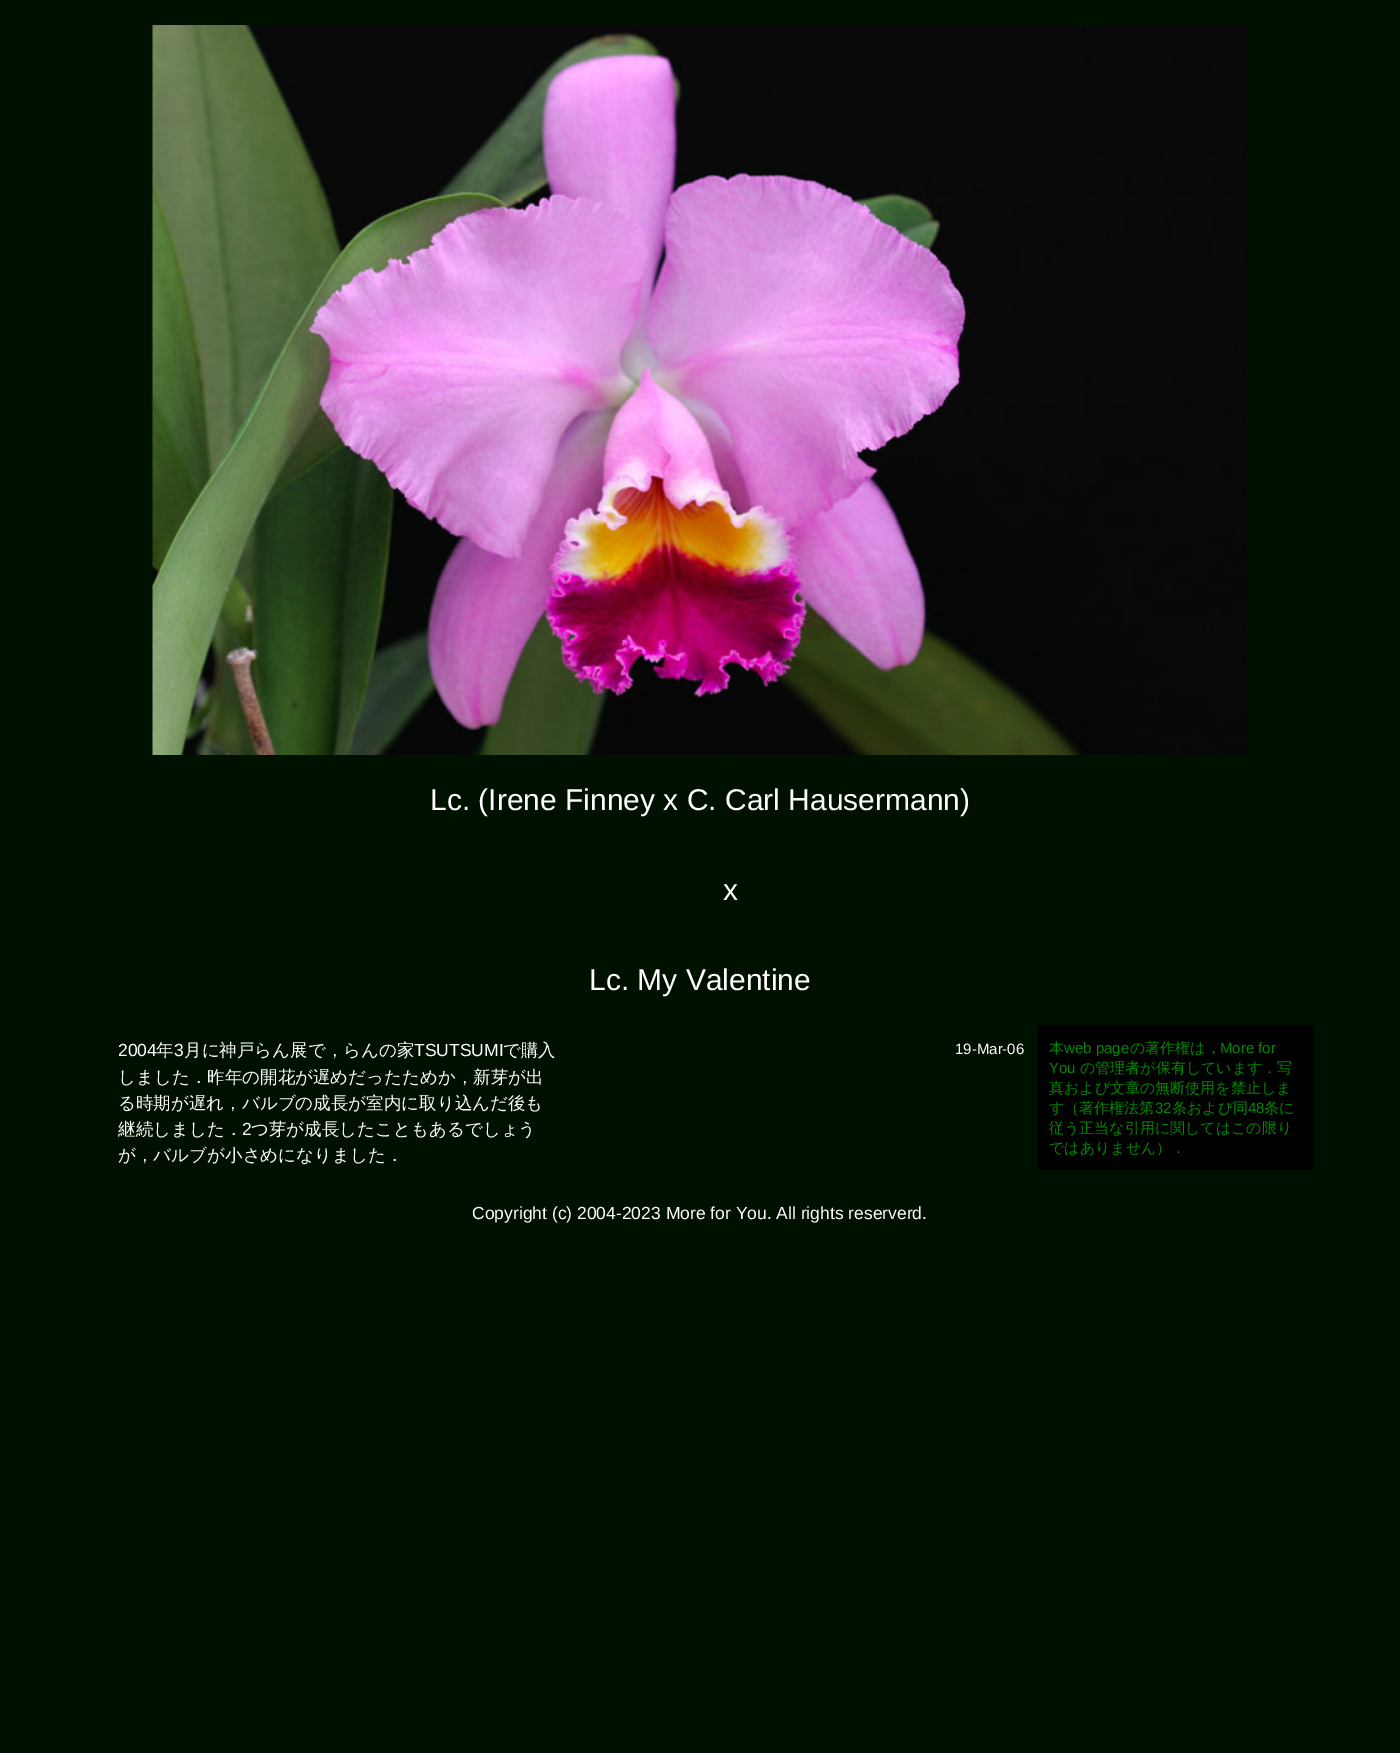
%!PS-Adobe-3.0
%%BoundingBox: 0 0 1400 1753
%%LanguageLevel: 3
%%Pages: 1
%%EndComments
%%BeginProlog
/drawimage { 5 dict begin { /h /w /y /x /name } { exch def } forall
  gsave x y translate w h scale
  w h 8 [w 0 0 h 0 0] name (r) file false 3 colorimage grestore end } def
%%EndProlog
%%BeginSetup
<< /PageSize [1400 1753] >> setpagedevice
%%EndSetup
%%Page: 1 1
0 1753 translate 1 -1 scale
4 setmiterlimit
0 0.067 0 setrgbcolor
0 0 1400 1753 rectfill
(images/1.raw) 152 25 1096 730 drawimage
0 setgray
1038 1025 276 145 rectfill
/LiberationSans-Regular [30 0 0 -30 0 0] selectfont
1 setgray
430 810 moveto (Lc. \(Irene Finney x C. Carl Hausermann\)) show
723 900 moveto (x) show
589 990 moveto (Lc. My Valentine) show
/LiberationSans-Regular [17.5 0 0 -17.5 0 0] selectfont
118 1056 moveto (2004) show
/WenQuanYiZenHei-Medium [17.5 0 0 -17.5 0 0] selectfont
156 1056 moveto (年) show
/LiberationSans-Regular [17.5 0 0 -17.5 0 0] selectfont
174 1056 moveto (3) show
/WenQuanYiZenHei-Medium [17.5 0 0 -17.5 0 0] selectfont
184 1056 moveto (月に神戸らん展で，らんの家) show
/LiberationSans-Regular [17.5 0 0 -17.5 0 0] selectfont
414 1056 moveto (TSUTSUMI) show
/WenQuanYiZenHei-Medium [17.5 0 0 -17.5 0 0] selectfont
503 1056 moveto (で購入) show
118 1083 moveto (しました．昨年の開花が遅めだったためか，新芽が出) show
118 1109 moveto (る時期が遅れ，バルブの成長が室内に取り込んだ後も) show
118 1135 moveto (継続しました．) show
/LiberationSans-Regular [17.5 0 0 -17.5 0 0] selectfont
242 1135 moveto (2) show
/WenQuanYiZenHei-Medium [17.5 0 0 -17.5 0 0] selectfont
251 1135 moveto (つ芽が成長したこともあるでしょう) show
118 1161 moveto (が，バルブが小さめになりました．) show
/LiberationSans-Regular [15 0 0 -15 0 0] selectfont
955 1054 moveto (19-Mar-06) show
/WenQuanYiZenHei-Medium [15 0 0 -15 0 0] selectfont
0 0.533 0 setrgbcolor
1049 1053 moveto (本) show
/LiberationSans-Regular [15 0 0 -15 0 0] selectfont
1064 1053 moveto (web page) show
/WenQuanYiZenHei-Medium [15 0 0 -15 0 0] selectfont
1130 1053 moveto (の著作権は，) show
/LiberationSans-Regular [15 0 0 -15 0 0] selectfont
1220 1053 moveto (More for) show
1049 1073 moveto (You) show
/WenQuanYiZenHei-Medium [15 0 0 -15 0 0] selectfont
1080 1073 moveto (の管理者が保有しています．写) show
1049 1093 moveto (真および文章の無断使用を禁止しま) show
1049 1113 moveto (す（著作権法第) show
/LiberationSans-Regular [15 0 0 -15 0 0] selectfont
1155 1113 moveto (32) show
/WenQuanYiZenHei-Medium [15 0 0 -15 0 0] selectfont
1172 1113 moveto (条および同) show
/LiberationSans-Regular [15 0 0 -15 0 0] selectfont
1248 1113 moveto (48) show
/WenQuanYiZenHei-Medium [15 0 0 -15 0 0] selectfont
1264 1113 moveto (条に) show
1049 1133 moveto (従う正当な引用に関してはこの限り) show
1049 1153 moveto (ではありません）．) show
/LiberationSans-Regular [17.5 0 0 -17.5 0 0] selectfont
1 setgray
472 1219 moveto (Copyright \(c\) 2004-2023 More for You. All rights reserverd.) show
showpage
%%EOF
